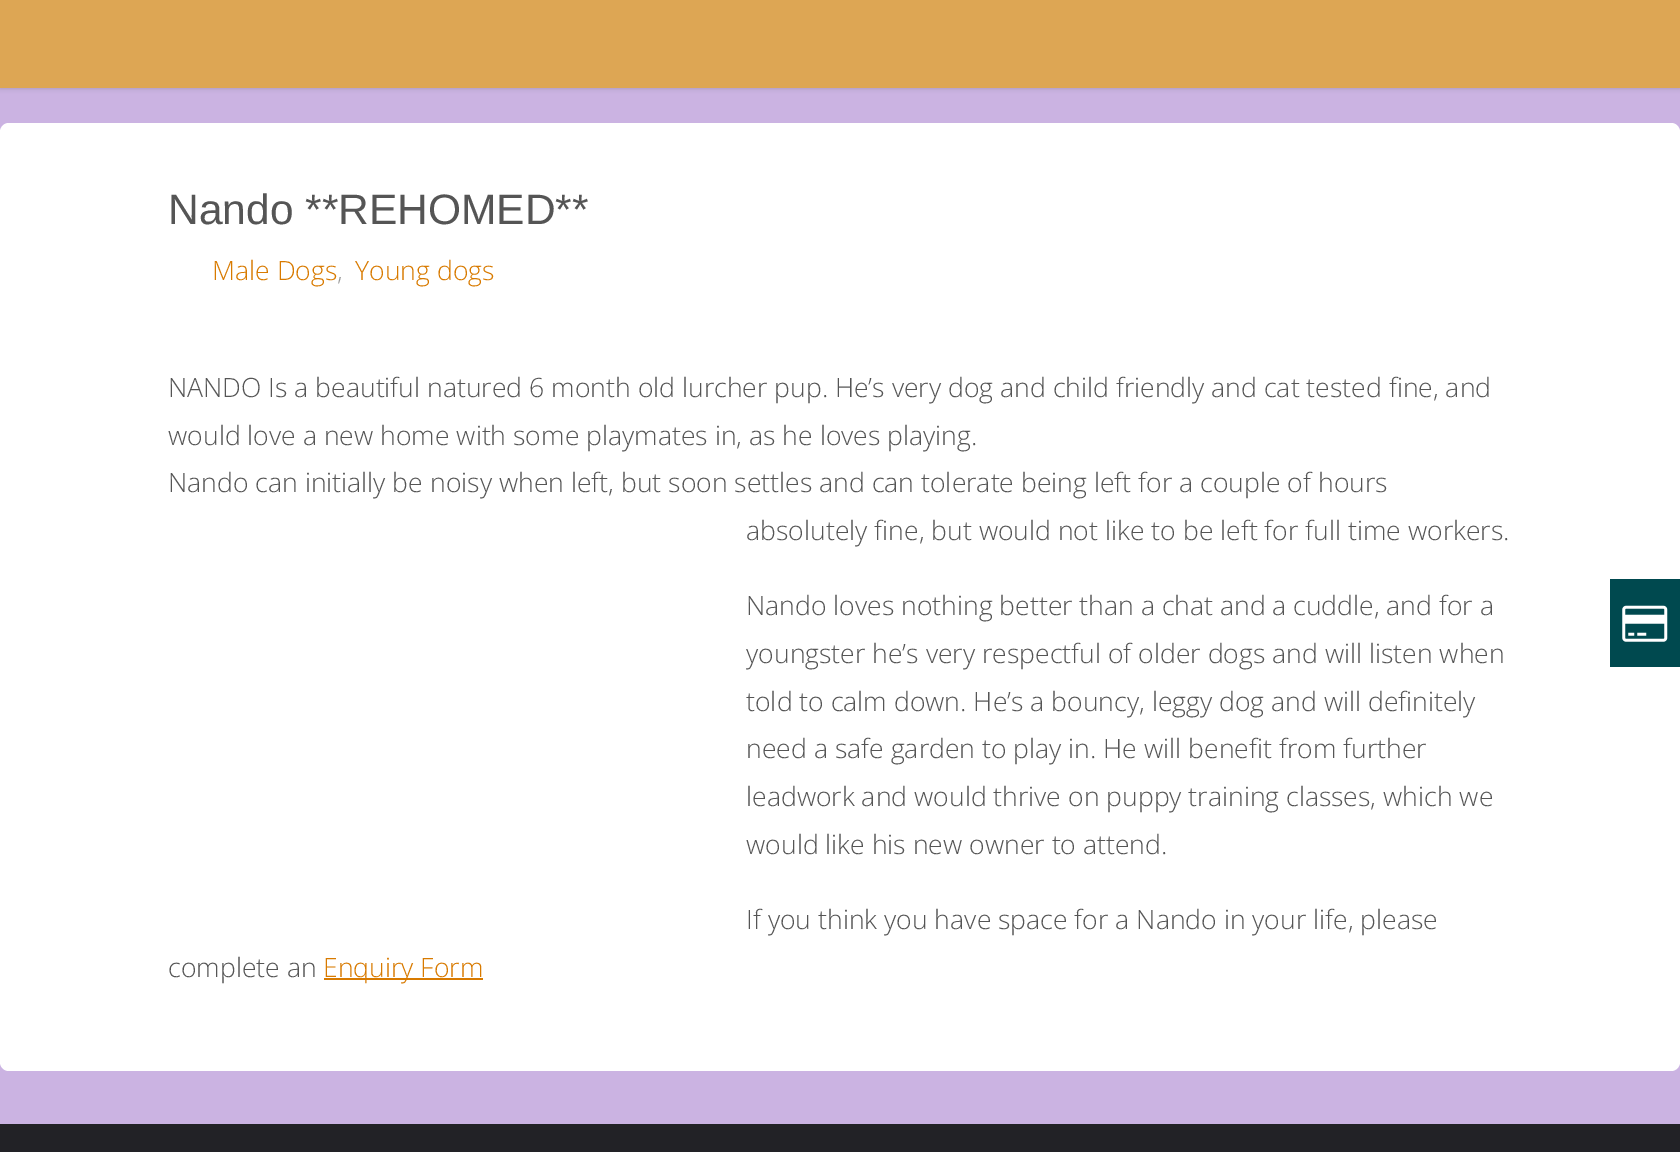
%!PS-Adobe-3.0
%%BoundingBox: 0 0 1680 1152
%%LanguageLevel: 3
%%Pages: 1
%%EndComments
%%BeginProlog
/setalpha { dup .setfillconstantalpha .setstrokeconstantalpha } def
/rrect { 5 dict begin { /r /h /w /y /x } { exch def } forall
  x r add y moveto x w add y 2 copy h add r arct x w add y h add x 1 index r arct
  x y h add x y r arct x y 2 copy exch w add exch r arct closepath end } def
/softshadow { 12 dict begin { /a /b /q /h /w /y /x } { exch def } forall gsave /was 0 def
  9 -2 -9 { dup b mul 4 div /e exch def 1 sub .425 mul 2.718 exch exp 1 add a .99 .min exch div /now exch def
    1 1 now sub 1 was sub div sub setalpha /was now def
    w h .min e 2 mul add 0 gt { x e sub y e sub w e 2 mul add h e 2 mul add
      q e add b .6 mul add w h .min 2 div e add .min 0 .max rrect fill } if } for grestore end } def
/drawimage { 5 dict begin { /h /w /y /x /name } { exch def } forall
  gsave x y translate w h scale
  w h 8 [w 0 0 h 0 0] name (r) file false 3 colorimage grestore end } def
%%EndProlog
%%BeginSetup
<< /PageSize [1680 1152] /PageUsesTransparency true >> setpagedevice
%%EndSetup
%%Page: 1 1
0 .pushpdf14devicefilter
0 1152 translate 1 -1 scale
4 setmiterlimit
0.796 0.702 0.886 setrgbcolor
0 0 1680 1152 rectfill
0 setgray
0 -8 1680 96 0 2.5 0.2 softshadow
0.867 0.651 0.329 setrgbcolor
0 0 1680 88 rectfill
1 setgray
0 123 1680 948 9 rrect fill
0.847 0.478 0 setrgbcolor
324 978 159 2 rectfill
0.133 0.133 0.149 setrgbcolor
0 1124 1680 28 rectfill
0 0.286 0.31 setrgbcolor
1610 579 70 88 rectfill
(images/1.raw) 1622 605 46 37 drawimage
/LiberationSans-Regular [42.5 0 0 -42.5 0 0] selectfont
0.333 setgray
168 224 moveto (Nando **REHOMED**) show
/OpenSans-Light [26.6 0 0 -26.6 0 0] selectfont
0.847 0.478 0 setrgbcolor
212 280 moveto (Male Dogs) show
0.604 setgray
337 280 moveto (,) show
0.847 0.478 0 setrgbcolor
355 280 moveto (Young dogs) show
0.333 setgray
168 397 moveto (NANDO Is a beautiful natured 6 month old lurcher pup. He’s very dog and child friendly and cat tested fine, and) show
168 445 moveto (would love a new home with some playmates in, as he loves playing.) show
168 492 moveto (Nando can initially be noisy when left, but soon settles and can tolerate being left for a couple of hours) show
746 540 moveto (absolutely fine, but would not like to be left for full time workers.) show
746 615 moveto (Nando loves nothing better than a chat and) show
1272 615 moveto (a cuddle, and for a) show
746 663 moveto (youngster he’s very respectful of older dogs and will listen when) show
746 711 moveto (told to calm down. He’s a bouncy, leggy dog and will definitely) show
746 758 moveto (need a safe garden to play in. He will benefit from further) show
746 806 moveto (leadwork and would thrive on puppy training classes, which we) show
746 854 moveto (would like his new owner to attend.) show
746 929 moveto (If you think you have space for a Nando in your life, please) show
168 977 moveto (complete an) show
0.847 0.478 0 setrgbcolor
323 977 moveto (Enquiry Form) show
.poppdf14devicefilter showpage
%%EOF
